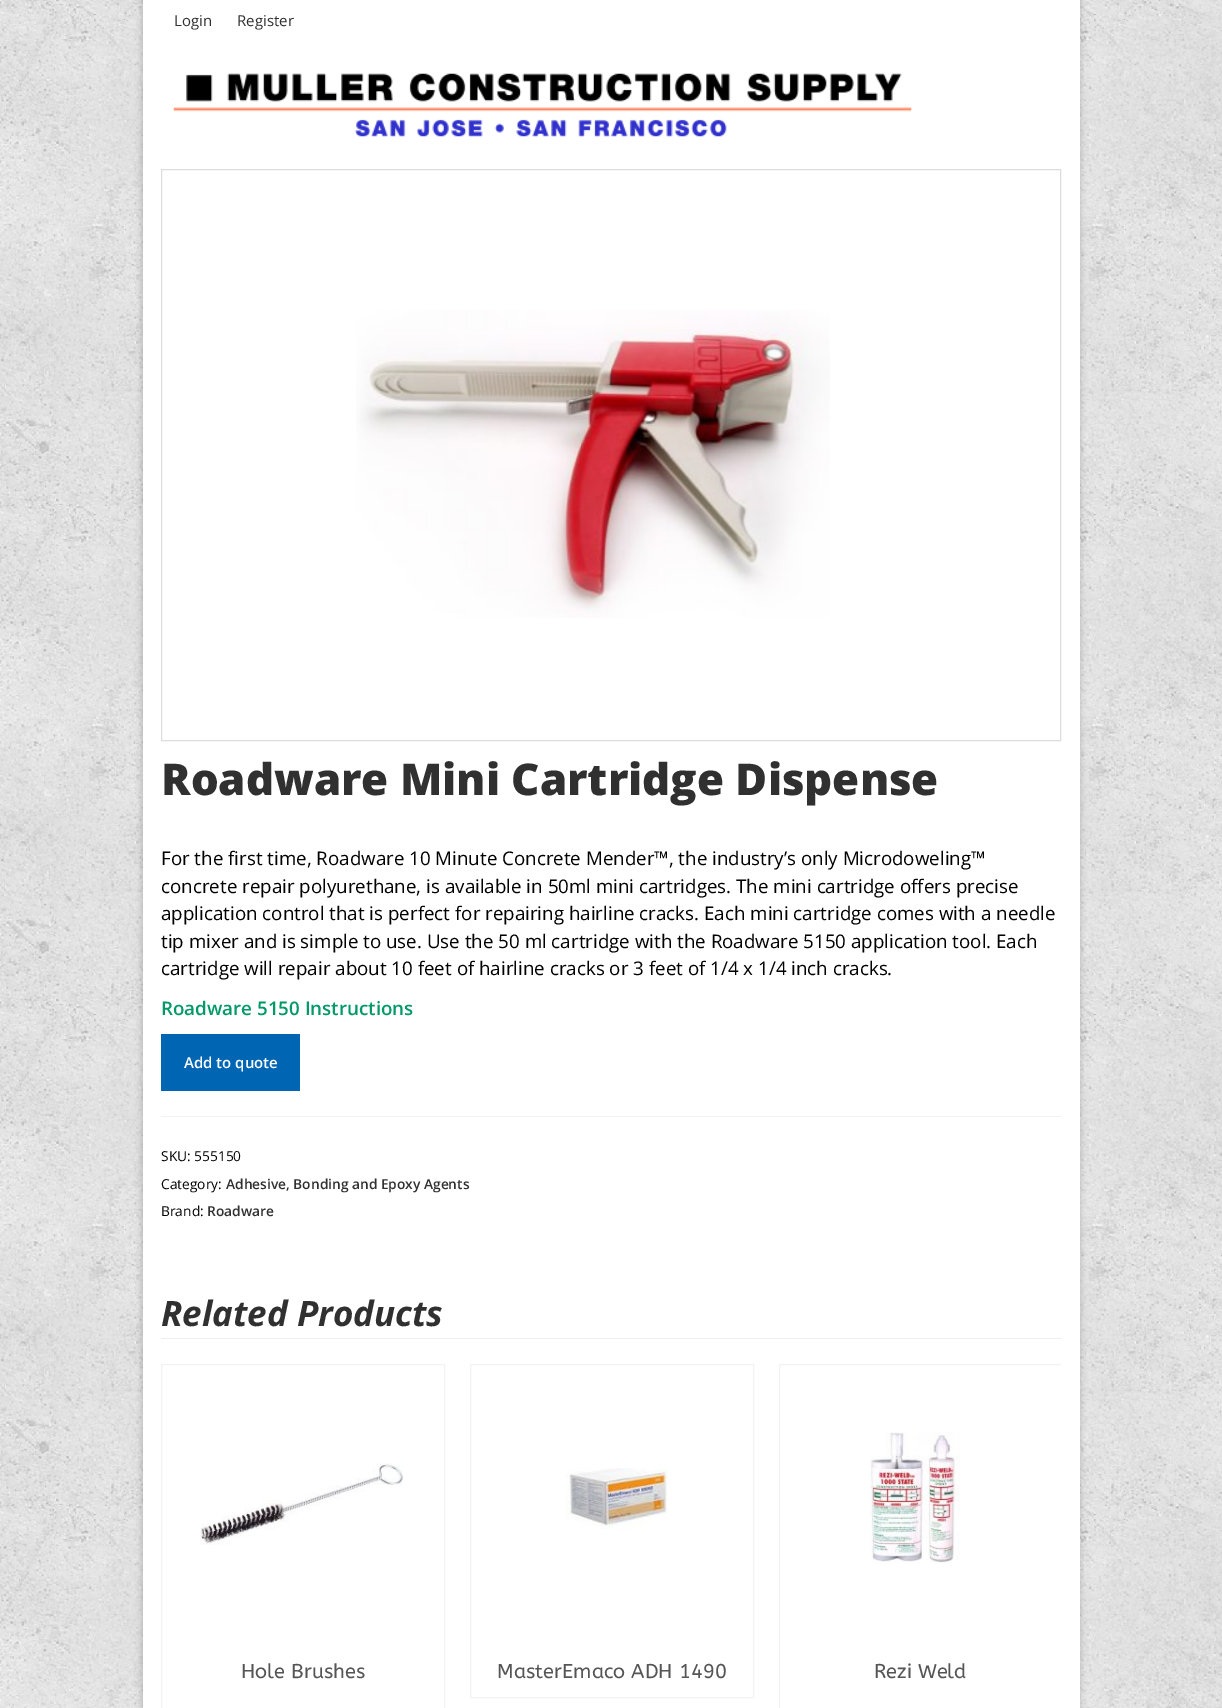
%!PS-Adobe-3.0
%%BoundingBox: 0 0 1222 1708
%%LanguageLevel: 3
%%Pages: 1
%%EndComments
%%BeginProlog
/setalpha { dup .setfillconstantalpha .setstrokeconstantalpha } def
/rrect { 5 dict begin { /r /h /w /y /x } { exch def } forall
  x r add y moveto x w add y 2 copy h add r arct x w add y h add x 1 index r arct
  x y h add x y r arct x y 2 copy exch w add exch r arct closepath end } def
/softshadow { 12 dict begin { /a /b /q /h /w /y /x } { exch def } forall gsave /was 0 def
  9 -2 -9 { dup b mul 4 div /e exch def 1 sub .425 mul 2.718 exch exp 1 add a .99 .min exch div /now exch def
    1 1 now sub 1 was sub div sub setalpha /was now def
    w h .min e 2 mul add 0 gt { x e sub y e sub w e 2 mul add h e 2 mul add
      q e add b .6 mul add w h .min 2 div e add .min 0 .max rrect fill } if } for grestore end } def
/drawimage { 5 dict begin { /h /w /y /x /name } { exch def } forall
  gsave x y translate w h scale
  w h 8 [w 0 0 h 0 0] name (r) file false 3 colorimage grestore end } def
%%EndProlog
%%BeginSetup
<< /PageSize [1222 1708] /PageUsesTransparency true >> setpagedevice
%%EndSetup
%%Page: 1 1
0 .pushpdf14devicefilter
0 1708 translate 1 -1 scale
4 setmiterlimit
1 setgray
0 0 1222 1708 rectfill
(images/1.raw) 0 0 1222 1708 drawimage
0 setgray
141 -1 940 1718 0 3 0.16 softshadow
1 setgray
143 0 937 1708 rectfill
(images/2.raw) 173 73 739 64 drawimage
0.867 setgray
161.5 169.5 899 571 rectstroke
(images/3.raw) 356 310 474 308 drawimage
0 0.4 0.706 setrgbcolor
161 1034 139 57 rectfill
0.949 setgray
161 1116 900 1 rectfill
0.933 setgray
161 1338 900 1 rectfill
0.949 setgray
161.5 1364.5 283 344 rectstroke
(images/4.raw) 200 1463 203 82 drawimage
470.5 1364.5 283 333 rectstroke
(images/5.raw) 565 1468 103 62 drawimage
gsave
161 1364 900 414 rectclip
779.5 1364.5 283 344 rectstroke
grestore
(images/6.raw) 870 1432 90 132 drawimage
/OpenSans-Regular [15 0 0 -15 0 0] selectfont
0.188 setgray
174 26 moveto (Login) show
237 26 moveto (Register) show
/OpenSans-ExtraBold [43.75 0 0 -43.75 0 0] selectfont
161 795 moveto (Roadware Mini Cartridge Dispense) show
/OpenSans-Regular [18.75 0 0 -18.75 0 0] selectfont
0 setgray
161 865 moveto (For the first time, Roadware 10 Minute Concrete Mender™, the industry’s only Microdoweling™) show
161 893 moveto (concrete repair polyurethane, is available in 50ml mini cartridges. The mini cartridge offers precise) show
161 920 moveto (application control that is perfect for repairing hairline cracks. Each mini cartridge comes with a needle) show
161 948 moveto (tip mixer and is simple to use. Use the 50 ml cartridge with the Roadware 5150 application tool. Each) show
161 975 moveto (cartridge will repair about 10 feet of hairline cracks or 3 feet of 1/4 x 1/4 inch cracks.) show
/OpenSans-SemiBold [18.75 0 0 -18.75 0 0] selectfont
0.004 0.6 0.4 setrgbcolor
161 1015 moveto (Roadware 5150 Instructions) show
/OpenSans-SemiBold [15 0 0 -15 0 0] selectfont
1 setgray
184 1068 moveto (Add to quote) show
/OpenSans-Regular [13.75 0 0 -13.75 0 0] selectfont
0 setgray
161 1161 moveto (SKU: 555150) show
161 1189 moveto (Category:) show
/OpenSans-SemiBold [13.75 0 0 -13.75 0 0] selectfont
0.188 setgray
226 1189 moveto (Adhesive, Bonding and Epoxy Agents) show
/OpenSans-Regular [13.75 0 0 -13.75 0 0] selectfont
0 setgray
161 1216 moveto (Brand:) show
/OpenSans-SemiBold [13.75 0 0 -13.75 0 0] selectfont
0.188 setgray
207 1216 moveto (Roadware) show
/OpenSans-BoldItalic [35 0 0 -35 0 0] selectfont
161 1326 moveto (Related Products) show
/ABeeZee-Regular [20 0 0 -20 0 0] selectfont
0.333 setgray
241 1678 moveto (Hole Brushes) show
497 1678 moveto (MasterEmaco ADH 1490) show
874 1678 moveto (Rezi Weld) show
.poppdf14devicefilter showpage
%%EOF
